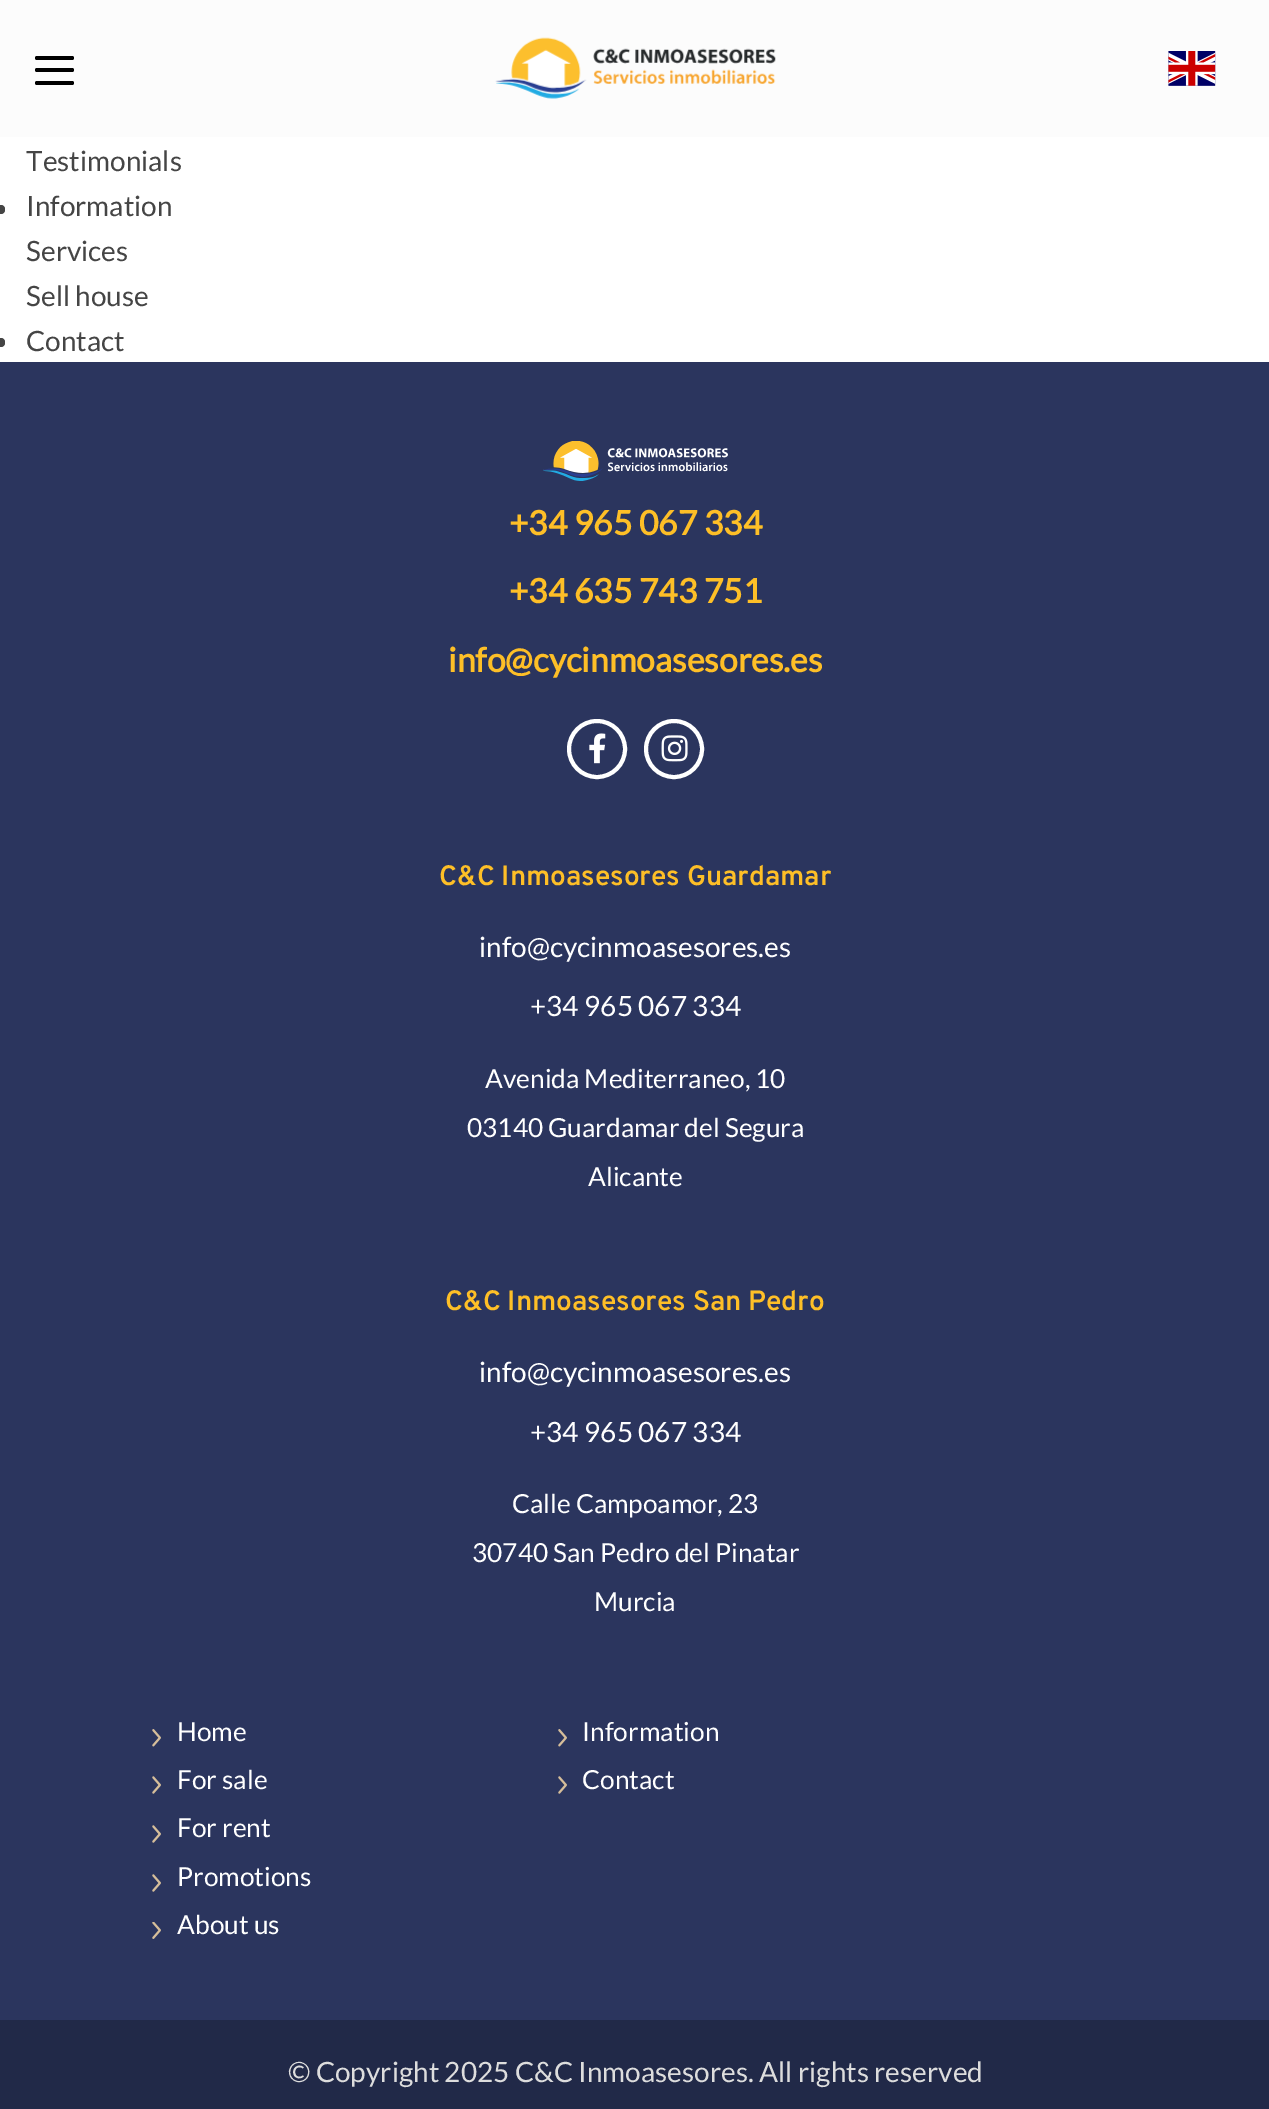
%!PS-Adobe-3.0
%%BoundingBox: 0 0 1269 2109
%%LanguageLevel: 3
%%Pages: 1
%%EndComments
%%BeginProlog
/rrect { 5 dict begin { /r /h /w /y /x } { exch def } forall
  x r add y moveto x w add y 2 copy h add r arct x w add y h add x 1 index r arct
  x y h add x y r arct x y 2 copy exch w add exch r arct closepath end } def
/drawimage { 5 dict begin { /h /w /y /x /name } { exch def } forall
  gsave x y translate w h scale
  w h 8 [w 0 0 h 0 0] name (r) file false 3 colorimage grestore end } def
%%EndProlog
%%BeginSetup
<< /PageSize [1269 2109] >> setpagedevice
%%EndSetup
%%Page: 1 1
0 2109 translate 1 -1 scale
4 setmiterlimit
1 setgray
0 0 1269 2109 rectfill
0.988 setgray
0 0 1269 137 rectfill
0 setgray
35 81 39 4 2 rrect fill
35 68 39 4 2 rrect fill
35 56 39 4 2 rrect fill
(images/1.raw) 495 37 281 62 drawimage
(images/2.raw) 1168 51 48 35 drawimage
0.271 setgray
-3 205 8 9 4 rrect fill
-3 338 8 9 4 rrect fill
0.169 0.208 0.369 setrgbcolor
0 362 1269 1658 rectfill
(images/3.raw) 543 441 185 40 drawimage
1 setgray
4 setlinewidth
newpath 597 749 28 0 360 arc closepath stroke
(images/4.raw) 589 733 17 31 drawimage
newpath 674 749 28 0 360 arc closepath stroke
(images/5.raw) 661 735 27 27 drawimage
(images/6.raw) 152 1729 9 18 drawimage
(images/6.raw) 558 1729 9 18 drawimage
(images/7.raw) 152 1776 9 18 drawimage
(images/7.raw) 558 1776 9 18 drawimage
(images/7.raw) 152 1825 9 18 drawimage
(images/7.raw) 152 1874 9 18 drawimage
(images/8.raw) 152 1922 9 17 drawimage
0.129 0.161 0.282 setrgbcolor
0 2020 1269 89 rectfill
/Lato-Regular [28 0 0 -28 0 0] selectfont
0.271 setgray
26 171 moveto (Testimonials) show
26 216 moveto (Information) show
26 261 moveto (Services) show
26 306 moveto (Sell house) show
26 351 moveto (Contact) show
/Lato-Bold [33.6 0 0 -33.6 0 0] selectfont
0.996 0.749 0.153 setrgbcolor
509 535 moveto (+34 965 067 334) show
509 603 moveto (+34 635 743 751) show
448 672 moveto (info@cycinmoasesores.es) show
/Overpass-SemiBold [28 0 0 -28 0 0] selectfont
439 885 moveto (C&C Inmoasesores Guardamar) show
/Lato-Regular [28 0 0 -28 0 0] selectfont
1 setgray
479 957 moveto (info@cycinmoasesores.es) show
530 1016 moveto (+34 965 067 334) show
/Lato-Regular [26.25 0 0 -26.25 0 0] selectfont
485 1088 moveto (Avenida Mediterraneo, 10) show
467 1137 moveto (03140 Guardamar del Segura) show
588 1186 moveto (Alicante) show
/Overpass-SemiBold [28 0 0 -28 0 0] selectfont
0.996 0.749 0.153 setrgbcolor
445 1310 moveto (C&C Inmoasesores San Pedro) show
/Lato-Regular [28 0 0 -28 0 0] selectfont
1 setgray
479 1382 moveto (info@cycinmoasesores.es) show
530 1442 moveto (+34 965 067 334) show
/Lato-Regular [26.25 0 0 -26.25 0 0] selectfont
512 1513 moveto (Calle Campoamor, 23) show
472 1562 moveto (30740 San Pedro del Pinatar) show
594 1611 moveto (Murcia) show
177 1741 moveto (Home) show
582 1741 moveto (Information) show
177 1789 moveto (For sale) show
582 1789 moveto (Contact) show
177 1837 moveto (For rent) show
177 1886 moveto (Promotions) show
177 1934 moveto (About us) show
/Lato-Regular [28 0 0 -28 0 0] selectfont
0.867 setgray
288 2082 moveto (© Copyright 2025 C&C Inmoasesores. All rights reserved) show
showpage
%%EOF
